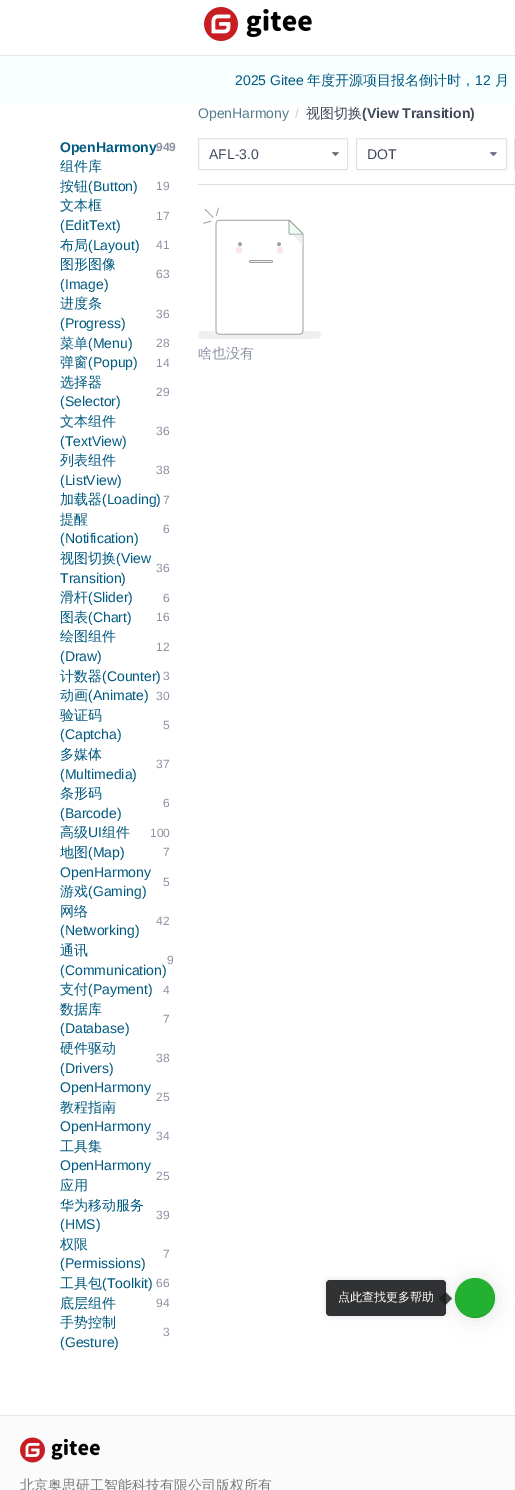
%!PS-Adobe-3.0
%%BoundingBox: 0 0 515 1490
%%LanguageLevel: 3
%%Pages: 1
%%EndComments
%%BeginProlog
/setalpha { dup .setfillconstantalpha .setstrokeconstantalpha } def
/rrect { 5 dict begin { /r /h /w /y /x } { exch def } forall
  x r add y moveto x w add y 2 copy h add r arct x w add y h add x 1 index r arct
  x y h add x y r arct x y 2 copy exch w add exch r arct closepath end } def
/softshadow { 12 dict begin { /a /b /q /h /w /y /x } { exch def } forall gsave /was 0 def
  9 -2 -9 { dup b mul 4 div /e exch def 1 sub .425 mul 2.718 exch exp 1 add a .99 .min exch div /now exch def
    1 1 now sub 1 was sub div sub setalpha /was now def
    w h .min e 2 mul add 0 gt { x e sub y e sub w e 2 mul add h e 2 mul add
      q e add b .6 mul add w h .min 2 div e add .min 0 .max rrect fill } if } for grestore end } def
/drawimage { 5 dict begin { /h /w /y /x /name } { exch def } forall
  gsave x y translate w h scale
  w h 8 [w 0 0 h 0 0] name (r) file false 3 colorimage grestore end } def
%%EndProlog
%%BeginSetup
<< /PageSize [515 1490] /PageUsesTransparency true >> setpagedevice
%%EndSetup
%%Page: 1 1
0 .pushpdf14devicefilter
0 1490 translate 1 -1 scale
4 setmiterlimit
1 setgray
0 0 515 1490 rectfill
0.89 0.914 0.929 setrgbcolor
0 55 515 1 rectfill
(images/1.raw) 204 7 108 34 drawimage
0.973 1 1 setrgbcolor
0 56 515 48 rectfill
0.863 0.89 0.91 setrgbcolor
198.5 138.5 149 31 1.5 rrect stroke
(images/2.raw) 332 152 7 4 drawimage
356.5 138.5 150 31 1.5 rrect stroke
(images/2.raw) 490 152 7 4 drawimage
514.5 138.5 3 31 1.5 rrect stroke
0.871 setgray
198 184 317 1 rectfill
(images/3.raw) 198 207 123 132 drawimage
0 setgray
455 1279 40 40 20 10 0.1 softshadow
0.133 0.694 0.188 setrgbcolor
newpath 475 1298 20 0 360 arc closepath fill
0.1 setalpha
0 setgray
newpath 456 1291 moveto 447 1314 483 1330 493 1306 curveto 495 1301 496 1295 494 1291 curveto 497 1302 491 1317 475 1317 curveto 459 1317 453 1302 456 1291 curveto closepath fill
gsave
newpath 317 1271 moveto 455 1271 lineto 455 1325 lineto 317 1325 lineto closepath 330 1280 moveto 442 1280 lineto 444 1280 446 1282 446 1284 curveto 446 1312 lineto 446 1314 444 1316 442 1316 curveto 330 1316 lineto 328 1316 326 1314 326 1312 curveto 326 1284 lineto 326 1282 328 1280 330 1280 curveto closepath eoclip newpath
1 setalpha
0.549 0.573 0.639 setrgbcolor
327 1281 118 34 3 3 0.45 softshadow
grestore
0.9 setalpha
0.106 0.11 0.114 setrgbcolor
326 1280 120 36 4 rrect fill
0.16 setalpha
0.702 setgray
newpath 447 1292 moveto 446 1293 lineto 452 1298.5 lineto 446 1304 lineto 447 1305 lineto 453 1298.5 lineto closepath fill
0.81 setalpha
0.106 0.11 0.114 setrgbcolor
newpath 445.5 1292 moveto 452 1298.5 lineto 445.5 1305 lineto 439 1298.5 lineto closepath fill
1 setalpha
0.984 setgray
0 1416 515 74 rectfill
0.89 0.914 0.929 setrgbcolor
0 1415 515 1 rectfill
(images/4.raw) 20 1437 80 26 drawimage
/LiberationSans-Regular [14 0 0 -14 0 0] selectfont
0 0.349 0.502 setrgbcolor
235 85 moveto (2025 Gitee) show
/WenQuanYiZenHei-Medium [14 0 0 -14 0 0] selectfont
307 85 moveto (年度开源项目报名倒计时，) show
/LiberationSans-Regular [14 0 0 -14 0 0] selectfont
475 85 moveto (12) show
/WenQuanYiZenHei-Medium [14 0 0 -14 0 0] selectfont
495 85 moveto (月) show
/LiberationSans-Bold [14 0 0 -14 0 0] selectfont
60 152 moveto (OpenHarmony) show
/WenQuanYiZenHei-Medium [14 0 0 -14 0 0] selectfont
60 171 moveto (组件库) show
/LiberationSans-Bold [12 0 0 -12 0 0] selectfont
0.549 0.573 0.643 setrgbcolor
156 151 moveto (949) show
/WenQuanYiZenHei-Medium [14 0 0 -14 0 0] selectfont
0 0.349 0.502 setrgbcolor
60 191 moveto (按钮) show
/LiberationSans-Regular [14 0 0 -14 0 0] selectfont
88 191 moveto (\(Button\)) show
/LiberationSans-Regular [12 0 0 -12 0 0] selectfont
0.549 0.573 0.643 setrgbcolor
156 190 moveto (19) show
/WenQuanYiZenHei-Medium [14 0 0 -14 0 0] selectfont
0 0.349 0.502 setrgbcolor
60 210 moveto (文本框) show
/LiberationSans-Regular [14 0 0 -14 0 0] selectfont
60 230 moveto (\(EditText\)) show
/LiberationSans-Regular [12 0 0 -12 0 0] selectfont
0.549 0.573 0.643 setrgbcolor
156 220 moveto (17) show
/WenQuanYiZenHei-Medium [14 0 0 -14 0 0] selectfont
0 0.349 0.502 setrgbcolor
60 250 moveto (布局) show
/LiberationSans-Regular [14 0 0 -14 0 0] selectfont
88 250 moveto (\(Layout\)) show
/LiberationSans-Regular [12 0 0 -12 0 0] selectfont
0.549 0.573 0.643 setrgbcolor
156 249 moveto (41) show
/WenQuanYiZenHei-Medium [14 0 0 -14 0 0] selectfont
0 0.349 0.502 setrgbcolor
60 269 moveto (图形图像) show
/LiberationSans-Regular [14 0 0 -14 0 0] selectfont
60 289 moveto (\(Image\)) show
/LiberationSans-Regular [12 0 0 -12 0 0] selectfont
0.549 0.573 0.643 setrgbcolor
156 278 moveto (63) show
/WenQuanYiZenHei-Medium [14 0 0 -14 0 0] selectfont
0 0.349 0.502 setrgbcolor
60 308 moveto (进度条) show
/LiberationSans-Regular [14 0 0 -14 0 0] selectfont
60 328 moveto (\(Progress\)) show
/LiberationSans-Regular [12 0 0 -12 0 0] selectfont
0.549 0.573 0.643 setrgbcolor
156 318 moveto (36) show
/WenQuanYiZenHei-Medium [14 0 0 -14 0 0] selectfont
0 0.349 0.502 setrgbcolor
60 348 moveto (菜单) show
/LiberationSans-Regular [14 0 0 -14 0 0] selectfont
88 348 moveto (\(Menu\)) show
/LiberationSans-Regular [12 0 0 -12 0 0] selectfont
0.549 0.573 0.643 setrgbcolor
156 347 moveto (28) show
/WenQuanYiZenHei-Medium [14 0 0 -14 0 0] selectfont
0 0.349 0.502 setrgbcolor
60 367 moveto (弹窗) show
/LiberationSans-Regular [14 0 0 -14 0 0] selectfont
88 367 moveto (\(Popup\)) show
/LiberationSans-Regular [12 0 0 -12 0 0] selectfont
0.549 0.573 0.643 setrgbcolor
156 367 moveto (14) show
/WenQuanYiZenHei-Medium [14 0 0 -14 0 0] selectfont
0 0.349 0.502 setrgbcolor
60 387 moveto (选择器) show
/LiberationSans-Regular [14 0 0 -14 0 0] selectfont
60 406 moveto (\(Selector\)) show
/LiberationSans-Regular [12 0 0 -12 0 0] selectfont
0.549 0.573 0.643 setrgbcolor
156 396 moveto (29) show
/WenQuanYiZenHei-Medium [14 0 0 -14 0 0] selectfont
0 0.349 0.502 setrgbcolor
60 426 moveto (文本组件) show
/LiberationSans-Regular [14 0 0 -14 0 0] selectfont
60 446 moveto (\(TextView\)) show
/LiberationSans-Regular [12 0 0 -12 0 0] selectfont
0.549 0.573 0.643 setrgbcolor
156 435 moveto (36) show
/WenQuanYiZenHei-Medium [14 0 0 -14 0 0] selectfont
0 0.349 0.502 setrgbcolor
60 465 moveto (列表组件) show
/LiberationSans-Regular [14 0 0 -14 0 0] selectfont
60 485 moveto (\(ListView\)) show
/LiberationSans-Regular [12 0 0 -12 0 0] selectfont
0.549 0.573 0.643 setrgbcolor
156 474 moveto (38) show
/WenQuanYiZenHei-Medium [14 0 0 -14 0 0] selectfont
0 0.349 0.502 setrgbcolor
60 504 moveto (加载器) show
/LiberationSans-Regular [14 0 0 -14 0 0] selectfont
102 504 moveto (\(Loading\)) show
/LiberationSans-Regular [12 0 0 -12 0 0] selectfont
0.549 0.573 0.643 setrgbcolor
163 504 moveto (7) show
/WenQuanYiZenHei-Medium [14 0 0 -14 0 0] selectfont
0 0.349 0.502 setrgbcolor
60 524 moveto (提醒) show
/LiberationSans-Regular [14 0 0 -14 0 0] selectfont
60 543 moveto (\(Notification\)) show
/LiberationSans-Regular [12 0 0 -12 0 0] selectfont
0.549 0.573 0.643 setrgbcolor
163 533 moveto (6) show
/WenQuanYiZenHei-Medium [14 0 0 -14 0 0] selectfont
0 0.349 0.502 setrgbcolor
60 563 moveto (视图切换) show
/LiberationSans-Regular [14 0 0 -14 0 0] selectfont
116 563 moveto (\(View) show
60 583 moveto (Transition\)) show
/LiberationSans-Regular [12 0 0 -12 0 0] selectfont
0.549 0.573 0.643 setrgbcolor
156 572 moveto (36) show
/WenQuanYiZenHei-Medium [14 0 0 -14 0 0] selectfont
0 0.349 0.502 setrgbcolor
60 602 moveto (滑杆) show
/LiberationSans-Regular [14 0 0 -14 0 0] selectfont
88 602 moveto (\(Slider\)) show
/LiberationSans-Regular [12 0 0 -12 0 0] selectfont
0.549 0.573 0.643 setrgbcolor
163 602 moveto (6) show
/WenQuanYiZenHei-Medium [14 0 0 -14 0 0] selectfont
0 0.349 0.502 setrgbcolor
60 622 moveto (图表) show
/LiberationSans-Regular [14 0 0 -14 0 0] selectfont
88 622 moveto (\(Chart\)) show
/LiberationSans-Regular [12 0 0 -12 0 0] selectfont
0.549 0.573 0.643 setrgbcolor
156 621 moveto (16) show
/WenQuanYiZenHei-Medium [14 0 0 -14 0 0] selectfont
0 0.349 0.502 setrgbcolor
60 641 moveto (绘图组件) show
/LiberationSans-Regular [14 0 0 -14 0 0] selectfont
60 661 moveto (\(Draw\)) show
/LiberationSans-Regular [12 0 0 -12 0 0] selectfont
0.549 0.573 0.643 setrgbcolor
156 651 moveto (12) show
/WenQuanYiZenHei-Medium [14 0 0 -14 0 0] selectfont
0 0.349 0.502 setrgbcolor
60 681 moveto (计数器) show
/LiberationSans-Regular [14 0 0 -14 0 0] selectfont
102 681 moveto (\(Counter\)) show
/LiberationSans-Regular [12 0 0 -12 0 0] selectfont
0.549 0.573 0.643 setrgbcolor
163 680 moveto (3) show
/WenQuanYiZenHei-Medium [14 0 0 -14 0 0] selectfont
0 0.349 0.502 setrgbcolor
60 700 moveto (动画) show
/LiberationSans-Regular [14 0 0 -14 0 0] selectfont
88 700 moveto (\(Animate\)) show
/LiberationSans-Regular [12 0 0 -12 0 0] selectfont
0.549 0.573 0.643 setrgbcolor
156 700 moveto (30) show
/WenQuanYiZenHei-Medium [14 0 0 -14 0 0] selectfont
0 0.349 0.502 setrgbcolor
60 720 moveto (验证码) show
/LiberationSans-Regular [14 0 0 -14 0 0] selectfont
60 739 moveto (\(Captcha\)) show
/LiberationSans-Regular [12 0 0 -12 0 0] selectfont
0.549 0.573 0.643 setrgbcolor
163 729 moveto (5) show
/WenQuanYiZenHei-Medium [14 0 0 -14 0 0] selectfont
0 0.349 0.502 setrgbcolor
60 759 moveto (多媒体) show
/LiberationSans-Regular [14 0 0 -14 0 0] selectfont
60 779 moveto (\(Multimedia\)) show
/LiberationSans-Regular [12 0 0 -12 0 0] selectfont
0.549 0.573 0.643 setrgbcolor
156 768 moveto (37) show
/WenQuanYiZenHei-Medium [14 0 0 -14 0 0] selectfont
0 0.349 0.502 setrgbcolor
60 798 moveto (条形码) show
/LiberationSans-Regular [14 0 0 -14 0 0] selectfont
60 818 moveto (\(Barcode\)) show
/LiberationSans-Regular [12 0 0 -12 0 0] selectfont
0.549 0.573 0.643 setrgbcolor
163 807 moveto (6) show
/WenQuanYiZenHei-Medium [14 0 0 -14 0 0] selectfont
0 0.349 0.502 setrgbcolor
60 837 moveto (高级) show
/LiberationSans-Regular [14 0 0 -14 0 0] selectfont
88 837 moveto (UI) show
/WenQuanYiZenHei-Medium [14 0 0 -14 0 0] selectfont
102 837 moveto (组件) show
/LiberationSans-Regular [12 0 0 -12 0 0] selectfont
0.549 0.573 0.643 setrgbcolor
150 837 moveto (100) show
/WenQuanYiZenHei-Medium [14 0 0 -14 0 0] selectfont
0 0.349 0.502 setrgbcolor
60 857 moveto (地图) show
/LiberationSans-Regular [14 0 0 -14 0 0] selectfont
88 857 moveto (\(Map\)) show
/LiberationSans-Regular [12 0 0 -12 0 0] selectfont
0.549 0.573 0.643 setrgbcolor
163 856 moveto (7) show
/LiberationSans-Regular [14 0 0 -14 0 0] selectfont
0 0.349 0.502 setrgbcolor
60 877 moveto (OpenHarmony) show
/WenQuanYiZenHei-Medium [14 0 0 -14 0 0] selectfont
60 896 moveto (游戏) show
/LiberationSans-Regular [14 0 0 -14 0 0] selectfont
88 896 moveto (\(Gaming\)) show
/LiberationSans-Regular [12 0 0 -12 0 0] selectfont
0.549 0.573 0.643 setrgbcolor
163 886 moveto (5) show
/WenQuanYiZenHei-Medium [14 0 0 -14 0 0] selectfont
0 0.349 0.502 setrgbcolor
60 916 moveto (网络) show
/LiberationSans-Regular [14 0 0 -14 0 0] selectfont
60 935 moveto (\(Networking\)) show
/LiberationSans-Regular [12 0 0 -12 0 0] selectfont
0.549 0.573 0.643 setrgbcolor
156 925 moveto (42) show
/WenQuanYiZenHei-Medium [14 0 0 -14 0 0] selectfont
0 0.349 0.502 setrgbcolor
60 955 moveto (通讯) show
/LiberationSans-Regular [14 0 0 -14 0 0] selectfont
60 975 moveto (\(Communication\)) show
/LiberationSans-Regular [12 0 0 -12 0 0] selectfont
0.549 0.573 0.643 setrgbcolor
167 964 moveto (9) show
/WenQuanYiZenHei-Medium [14 0 0 -14 0 0] selectfont
0 0.349 0.502 setrgbcolor
60 994 moveto (支付) show
/LiberationSans-Regular [14 0 0 -14 0 0] selectfont
88 994 moveto (\(Payment\)) show
/LiberationSans-Regular [12 0 0 -12 0 0] selectfont
0.549 0.573 0.643 setrgbcolor
163 994 moveto (4) show
/WenQuanYiZenHei-Medium [14 0 0 -14 0 0] selectfont
0 0.349 0.502 setrgbcolor
60 1014 moveto (数据库) show
/LiberationSans-Regular [14 0 0 -14 0 0] selectfont
60 1033 moveto (\(Database\)) show
/LiberationSans-Regular [12 0 0 -12 0 0] selectfont
0.549 0.573 0.643 setrgbcolor
163 1023 moveto (7) show
/WenQuanYiZenHei-Medium [14 0 0 -14 0 0] selectfont
0 0.349 0.502 setrgbcolor
60 1053 moveto (硬件驱动) show
/LiberationSans-Regular [14 0 0 -14 0 0] selectfont
60 1073 moveto (\(Drivers\)) show
/LiberationSans-Regular [12 0 0 -12 0 0] selectfont
0.549 0.573 0.643 setrgbcolor
156 1062 moveto (38) show
/LiberationSans-Regular [14 0 0 -14 0 0] selectfont
0 0.349 0.502 setrgbcolor
60 1092 moveto (OpenHarmony) show
/WenQuanYiZenHei-Medium [14 0 0 -14 0 0] selectfont
60 1112 moveto (教程指南) show
/LiberationSans-Regular [12 0 0 -12 0 0] selectfont
0.549 0.573 0.643 setrgbcolor
156 1101 moveto (25) show
/LiberationSans-Regular [14 0 0 -14 0 0] selectfont
0 0.349 0.502 setrgbcolor
60 1131 moveto (OpenHarmony) show
/WenQuanYiZenHei-Medium [14 0 0 -14 0 0] selectfont
60 1151 moveto (工具集) show
/LiberationSans-Regular [12 0 0 -12 0 0] selectfont
0.549 0.573 0.643 setrgbcolor
156 1140 moveto (34) show
/LiberationSans-Regular [14 0 0 -14 0 0] selectfont
0 0.349 0.502 setrgbcolor
60 1170 moveto (OpenHarmony) show
/WenQuanYiZenHei-Medium [14 0 0 -14 0 0] selectfont
60 1190 moveto (应用) show
/LiberationSans-Regular [12 0 0 -12 0 0] selectfont
0.549 0.573 0.643 setrgbcolor
156 1180 moveto (25) show
/WenQuanYiZenHei-Medium [14 0 0 -14 0 0] selectfont
0 0.349 0.502 setrgbcolor
60 1210 moveto (华为移动服务) show
/LiberationSans-Regular [14 0 0 -14 0 0] selectfont
60 1229 moveto (\(HMS\)) show
/LiberationSans-Regular [12 0 0 -12 0 0] selectfont
0.549 0.573 0.643 setrgbcolor
156 1219 moveto (39) show
/WenQuanYiZenHei-Medium [14 0 0 -14 0 0] selectfont
0 0.349 0.502 setrgbcolor
60 1249 moveto (权限) show
/LiberationSans-Regular [14 0 0 -14 0 0] selectfont
60 1268 moveto (\(Permissions\)) show
/LiberationSans-Regular [12 0 0 -12 0 0] selectfont
0.549 0.573 0.643 setrgbcolor
163 1258 moveto (7) show
/WenQuanYiZenHei-Medium [14 0 0 -14 0 0] selectfont
0 0.349 0.502 setrgbcolor
60 1288 moveto (工具包) show
/LiberationSans-Regular [14 0 0 -14 0 0] selectfont
102 1288 moveto (\(Toolkit\)) show
/LiberationSans-Regular [12 0 0 -12 0 0] selectfont
0.549 0.573 0.643 setrgbcolor
156 1287 moveto (66) show
/WenQuanYiZenHei-Medium [14 0 0 -14 0 0] selectfont
0 0.349 0.502 setrgbcolor
60 1308 moveto (底层组件) show
/LiberationSans-Regular [12 0 0 -12 0 0] selectfont
0.549 0.573 0.643 setrgbcolor
156 1307 moveto (94) show
/WenQuanYiZenHei-Medium [14 0 0 -14 0 0] selectfont
0 0.349 0.502 setrgbcolor
60 1327 moveto (手势控制) show
/LiberationSans-Regular [14 0 0 -14 0 0] selectfont
60 1347 moveto (\(Gesture\)) show
/LiberationSans-Regular [12 0 0 -12 0 0] selectfont
0.549 0.573 0.643 setrgbcolor
163 1336 moveto (3) show
/LiberationSans-Regular [14 0 0 -14 0 0] selectfont
0.325 0.486 0.553 setrgbcolor
198 118 moveto (OpenHarmony) show
/LiberationSans-Regular [13 0 0 -13 0 0] selectfont
0.8 setgray
295 118 moveto (/) show
/WenQuanYiZenHei-Medium [14 0 0 -14 0 0] selectfont
0.251 0.282 0.357 setrgbcolor
306 118 moveto (视图切换) show
/LiberationSans-Bold [14 0 0 -14 0 0] selectfont
362 118 moveto (\(View Transition\)) show
/LiberationSans-Regular [14 0 0 -14 0 0] selectfont
209 159 moveto (AFL-3.0) show
367 159 moveto (DOT) show
/WenQuanYiZenHei-Medium [14 0 0 -14 0 0] selectfont
0.549 0.573 0.643 setrgbcolor
198 358 moveto (啥也没有) show
/WenQuanYiZenHei-Medium [12 0 0 -12 0 0] selectfont
1 setgray
338 1301 moveto (点此查找更多帮助) show
/WenQuanYiZenHei-Medium [14 0 0 -14 0 0] selectfont
0.478 setgray
20 1490 moveto (北京奥思研工智能科技有限公司版权所有) show
.poppdf14devicefilter showpage
%%EOF
